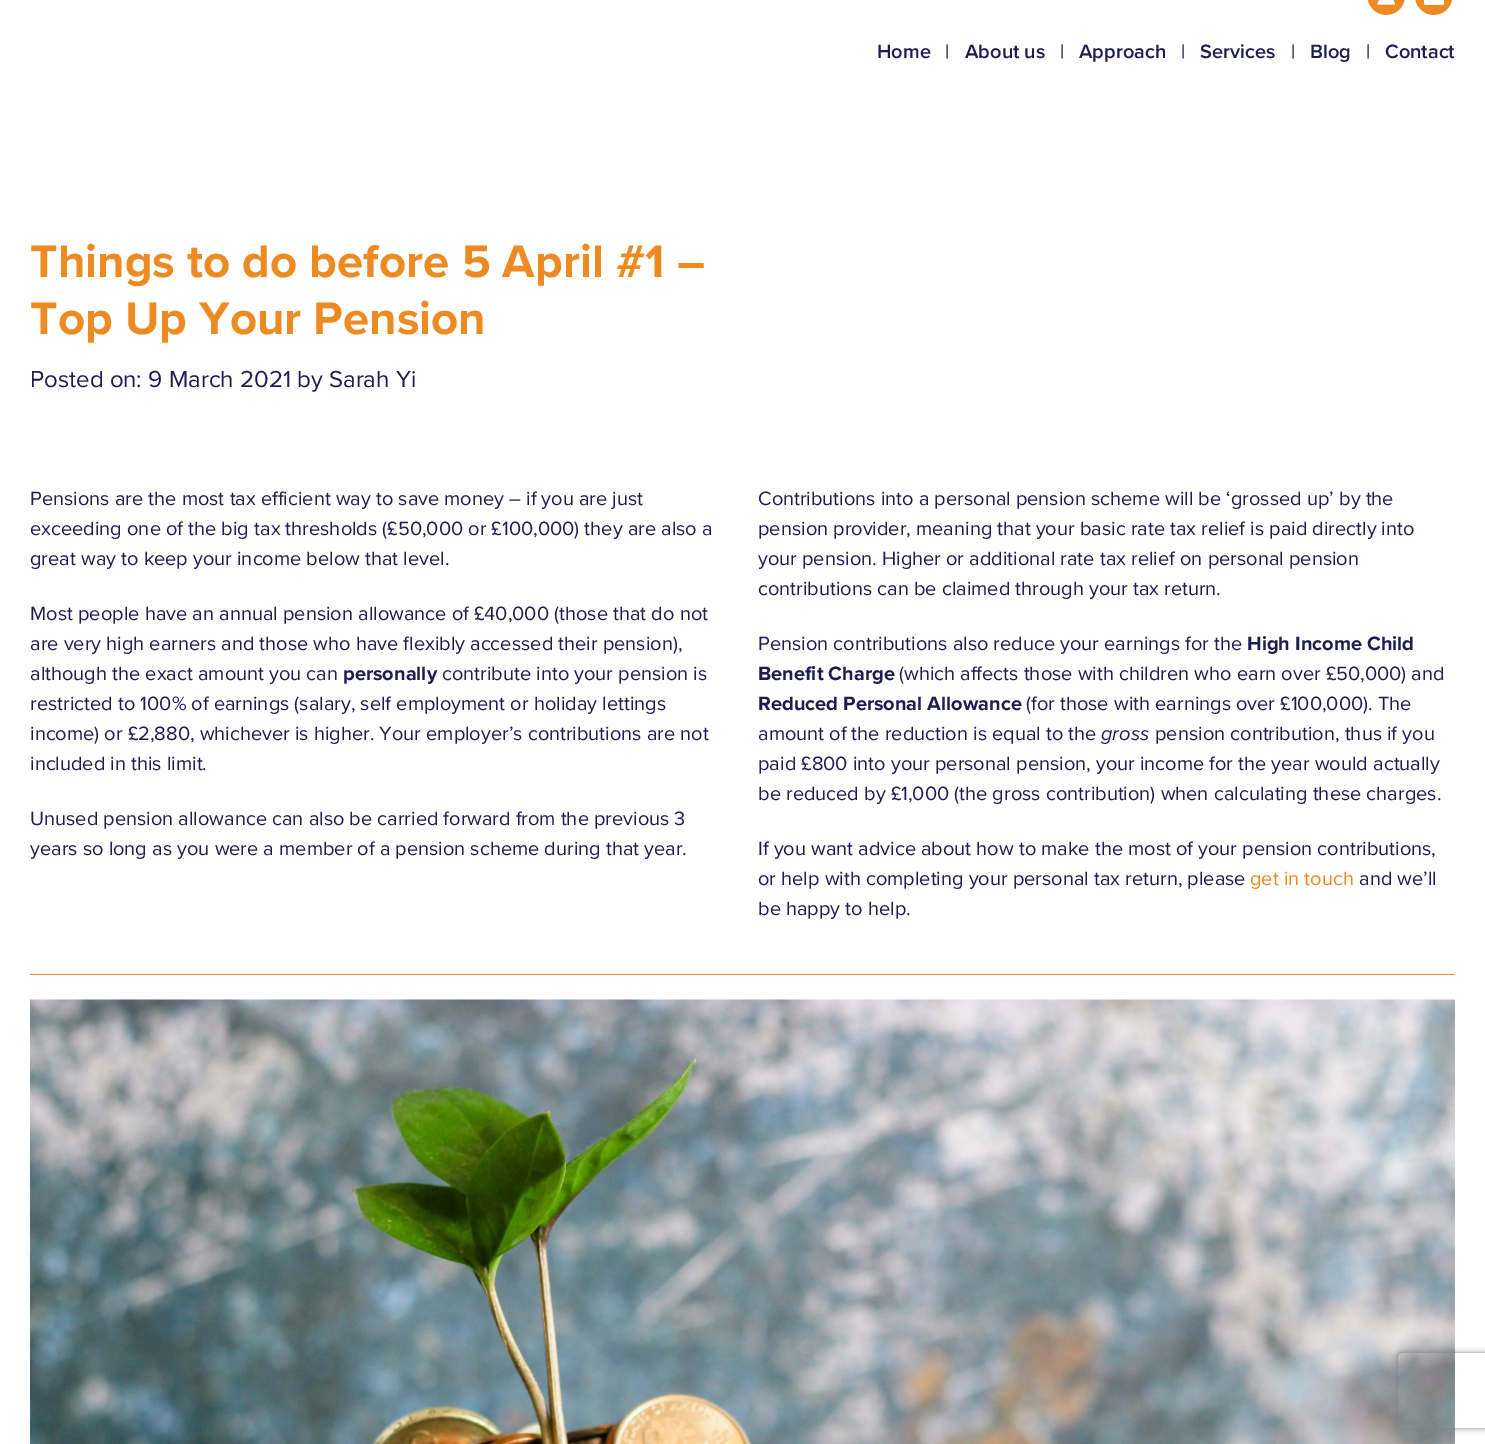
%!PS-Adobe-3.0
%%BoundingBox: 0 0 1485 1444
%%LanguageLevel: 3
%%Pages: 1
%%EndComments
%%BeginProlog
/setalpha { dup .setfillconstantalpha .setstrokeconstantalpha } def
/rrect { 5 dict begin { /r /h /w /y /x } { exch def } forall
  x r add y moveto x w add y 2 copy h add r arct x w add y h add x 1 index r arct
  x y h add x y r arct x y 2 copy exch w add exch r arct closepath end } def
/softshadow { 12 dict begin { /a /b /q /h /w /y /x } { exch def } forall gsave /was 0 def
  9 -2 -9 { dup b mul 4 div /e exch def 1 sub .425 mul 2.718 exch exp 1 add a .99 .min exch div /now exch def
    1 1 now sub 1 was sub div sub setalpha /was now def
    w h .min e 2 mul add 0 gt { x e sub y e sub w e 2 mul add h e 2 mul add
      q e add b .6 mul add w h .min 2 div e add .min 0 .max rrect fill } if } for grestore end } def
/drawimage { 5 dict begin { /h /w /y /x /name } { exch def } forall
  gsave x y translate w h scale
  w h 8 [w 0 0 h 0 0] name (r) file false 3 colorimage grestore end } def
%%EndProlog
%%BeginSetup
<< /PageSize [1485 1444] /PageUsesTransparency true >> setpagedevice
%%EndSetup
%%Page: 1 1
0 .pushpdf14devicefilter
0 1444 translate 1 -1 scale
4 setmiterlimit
1 setgray
0 0 1485 1444 rectfill
(images/1.raw) 1368 0 37 15 drawimage
(images/2.raw) 1415 0 38 15 drawimage
0.933 0.541 0.133 setrgbcolor
30 974 1425 1 rectfill
(images/3.raw) 30 999 1425 445 drawimage
gsave
newpath 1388 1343 moveto 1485 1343 lineto 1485 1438 lineto 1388 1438 lineto closepath 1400.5 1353 moveto 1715.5 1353 lineto 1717 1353 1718 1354 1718 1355.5 curveto 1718 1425.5 lineto 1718 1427 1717 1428 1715.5 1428 curveto 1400.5 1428 lineto 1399 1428 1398 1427 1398 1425.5 curveto 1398 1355.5 lineto 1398 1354 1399 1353 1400.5 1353 curveto closepath eoclip newpath
0.502 setgray
1398 1353 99 75 2.5 3 1 softshadow
grestore
/ProximaNova-SemiBold [20 0 0 -20 0 0] selectfont
0.125 0.106 0.318 setrgbcolor
877 58 moveto (Home) show
/ProximaNova-Regular [20 0 0 -20 0 0] selectfont
945 58 moveto (|) show
/ProximaNova-SemiBold [20 0 0 -20 0 0] selectfont
965 58 moveto (About us) show
/ProximaNova-Regular [20 0 0 -20 0 0] selectfont
1060 58 moveto (|) show
/ProximaNova-SemiBold [20 0 0 -20 0 0] selectfont
1079 58 moveto (Approach) show
/ProximaNova-Regular [20 0 0 -20 0 0] selectfont
1181 58 moveto (|) show
/ProximaNova-SemiBold [20 0 0 -20 0 0] selectfont
1200 58 moveto (Services) show
/ProximaNova-Regular [20 0 0 -20 0 0] selectfont
1291 58 moveto (|) show
/ProximaNova-SemiBold [20 0 0 -20 0 0] selectfont
1310 58 moveto (Blog) show
/ProximaNova-Regular [20 0 0 -20 0 0] selectfont
1366 58 moveto (|) show
/ProximaNova-SemiBold [20 0 0 -20 0 0] selectfont
1385 58 moveto (Contact) show
/ProximaNova-Bold [47.4 0 0 -47.4 0 0] selectfont
0.933 0.541 0.133 setrgbcolor
30 277 moveto (Things to do before 5 April #1 –) show
30 334 moveto (Top Up Your Pension) show
/ProximaNova-Regular [24 0 0 -24 0 0] selectfont
0.125 0.106 0.318 setrgbcolor
30 387 moveto (Posted on: 9 March 2021 by Sarah Yi) show
/ProximaNova-Regular [20 0 0 -20 0 0] selectfont
30 505 moveto (Pensions are the most tax efficient way to save money – if you are just) show
30 535 moveto (exceeding one of the big tax thresholds \(£50,000 or £100,000\) they are also a) show
30 565 moveto (great way to keep your income below that level.) show
758 505 moveto (Contributions into a personal pension scheme will be ‘grossed up’ by the) show
758 535 moveto (pension provider, meaning that your basic rate tax relief is paid directly into) show
758 565 moveto (your pension. Higher or additional rate tax relief on personal pension) show
758 595 moveto (contributions can be claimed through your tax return.) show
30 620 moveto (Most people have an annual pension allowance of £40,000 \(those that do not) show
30 650 moveto (are very high earners and those who have flexibly accessed their pension\),) show
30 680 moveto (although the exact amount you can) show
/ProximaNova-Bold [20 0 0 -20 0 0] selectfont
343 680 moveto (personally) show
/ProximaNova-Regular [20 0 0 -20 0 0] selectfont
442 680 moveto (contribute into your pension is) show
30 710 moveto (restricted to 100% of earnings \(salary, self employment or holiday lettings) show
30 740 moveto (income\) or £2,880, whichever is higher. Your employer’s contributions are not) show
30 770 moveto (included in this limit.) show
758 650 moveto (Pension contributions also reduce your earnings for the) show
/ProximaNova-Bold [20 0 0 -20 0 0] selectfont
1247 650 moveto (High Income Child) show
758 680 moveto (Benefit Charge) show
/ProximaNova-Regular [20 0 0 -20 0 0] selectfont
899 680 moveto (\(which affects those with children who earn over £50,000\) and) show
/ProximaNova-Bold [20 0 0 -20 0 0] selectfont
758 710 moveto (Reduced Personal Allowance) show
/ProximaNova-Regular [20 0 0 -20 0 0] selectfont
1026 710 moveto (\(for those with earnings over £100,000\). The) show
758 740 moveto (amount of the reduction is equal to the) show
/ProximaNova-Italic [20 0 0 -20 0 0] selectfont
1101 740 moveto (gross) show
/ProximaNova-Regular [20 0 0 -20 0 0] selectfont
1155 740 moveto (pension contribution, thus if you) show
758 770 moveto (paid £800 into your personal pension, your income for the year would actually) show
758 800 moveto (be reduced by £1,000 \(the gross contribution\) when calculating these charges.) show
30 825 moveto (Unused pension allowance can also be carried forward from the previous 3) show
30 855 moveto (years so long as you were a member of a pension scheme during that year.) show
758 855 moveto (If you want advice about how to make the most of your pension contributions,) show
758 885 moveto (or help with completing your personal tax return, please) show
0.933 0.541 0.133 setrgbcolor
1250 885 moveto (get in touch) show
0.125 0.106 0.318 setrgbcolor
1359 885 moveto (and we’ll) show
758 915 moveto (be happy to help.) show
.poppdf14devicefilter showpage
%%EOF
